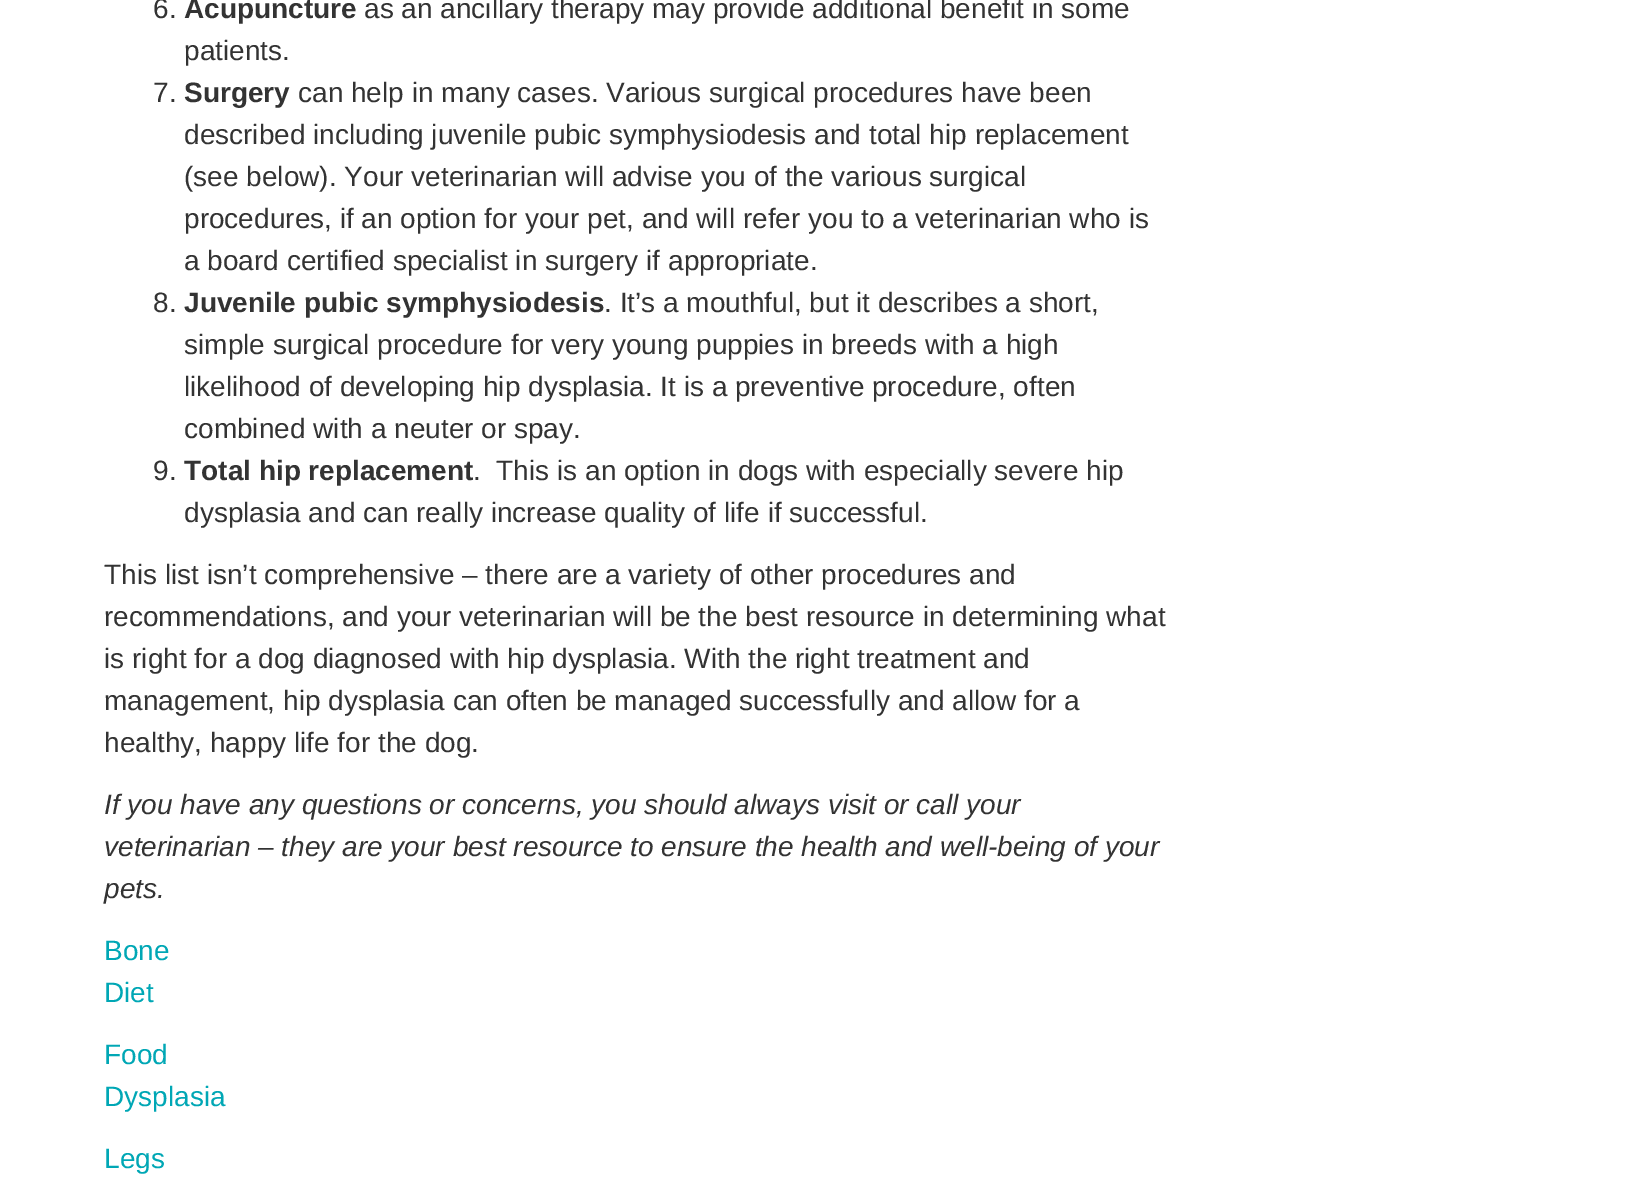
%!PS-Adobe-3.0
%%BoundingBox: 0 0 1648 1183
%%LanguageLevel: 3
%%Pages: 1
%%EndComments
%%BeginProlog
%%EndProlog
%%BeginSetup
<< /PageSize [1648 1183] >> setpagedevice
%%EndSetup
%%Page: 1 1
0 1183 translate 1 -1 scale
4 setmiterlimit
1 setgray
0 0 1648 1183 rectfill
/LiberationSans-Regular [28 0 0 -28 0 0] selectfont
0.2 setgray
153 18 moveto (6.) show
/LiberationSans-Bold [28 0 0 -28 0 0] selectfont
184 18 moveto (Acupuncture) show
/LiberationSans-Regular [28 0 0 -28 0 0] selectfont
364 18 moveto (as an ancillary therapy may provide additional benefit in some) show
184 60 moveto (patients.) show
153 102 moveto (7.) show
/LiberationSans-Bold [28 0 0 -28 0 0] selectfont
184 102 moveto (Surgery) show
/LiberationSans-Regular [28 0 0 -28 0 0] selectfont
298 102 moveto (can help in many cases. Various surgical procedures have been) show
184 144 moveto (described including juvenile pubic symphysiodesis and total hip replacement) show
184 186 moveto (\(see below\). Your veterinarian will advise you of the various surgical) show
184 228 moveto (procedures, if an option for your pet, and will refer you to a veterinarian who is) show
184 270 moveto (a board certified specialist in surgery if appropriate.) show
153 312 moveto (8.) show
/LiberationSans-Bold [28 0 0 -28 0 0] selectfont
184 312 moveto (Juvenile pubic symphysiodesis) show
/LiberationSans-Regular [28 0 0 -28 0 0] selectfont
604 312 moveto (. It’s a mouthful, but it describes a short,) show
184 354 moveto (simple surgical procedure for very young puppies in breeds with a high) show
184 396 moveto (likelihood of developing hip dysplasia. It is a preventive procedure, often) show
184 438 moveto (combined with a neuter or spay.) show
153 480 moveto (9.) show
/LiberationSans-Bold [28 0 0 -28 0 0] selectfont
184 480 moveto (Total hip replacement) show
/LiberationSans-Regular [28 0 0 -28 0 0] selectfont
473 480 moveto (.  This is an option in dogs with especially severe hip) show
184 522 moveto (dysplasia and can really increase quality of life if successful.) show
104 584 moveto (This list isn’t comprehensive – there are a variety of other procedures and) show
104 626 moveto (recommendations, and your veterinarian will be the best resource in determining what) show
104 668 moveto (is right for a dog diagnosed with hip dysplasia. With the right treatment and) show
104 710 moveto (management, hip dysplasia can often be managed successfully and allow for a) show
104 752 moveto (healthy, happy life for the dog.) show
/LiberationSans-Italic [28 0 0 -28 0 0] selectfont
104 814 moveto (If you have any questions or concerns, you should always visit or call your) show
104 856 moveto (veterinarian – they are your best resource to ensure the health and well-being of your) show
104 898 moveto (pets.) show
/LiberationSans-Regular [28 0 0 -28 0 0] selectfont
0 0.655 0.71 setrgbcolor
104 960 moveto (Bone) show
104 1002 moveto (Diet) show
104 1064 moveto (Food) show
104 1106 moveto (Dysplasia) show
104 1168 moveto (Legs) show
showpage
%%EOF
